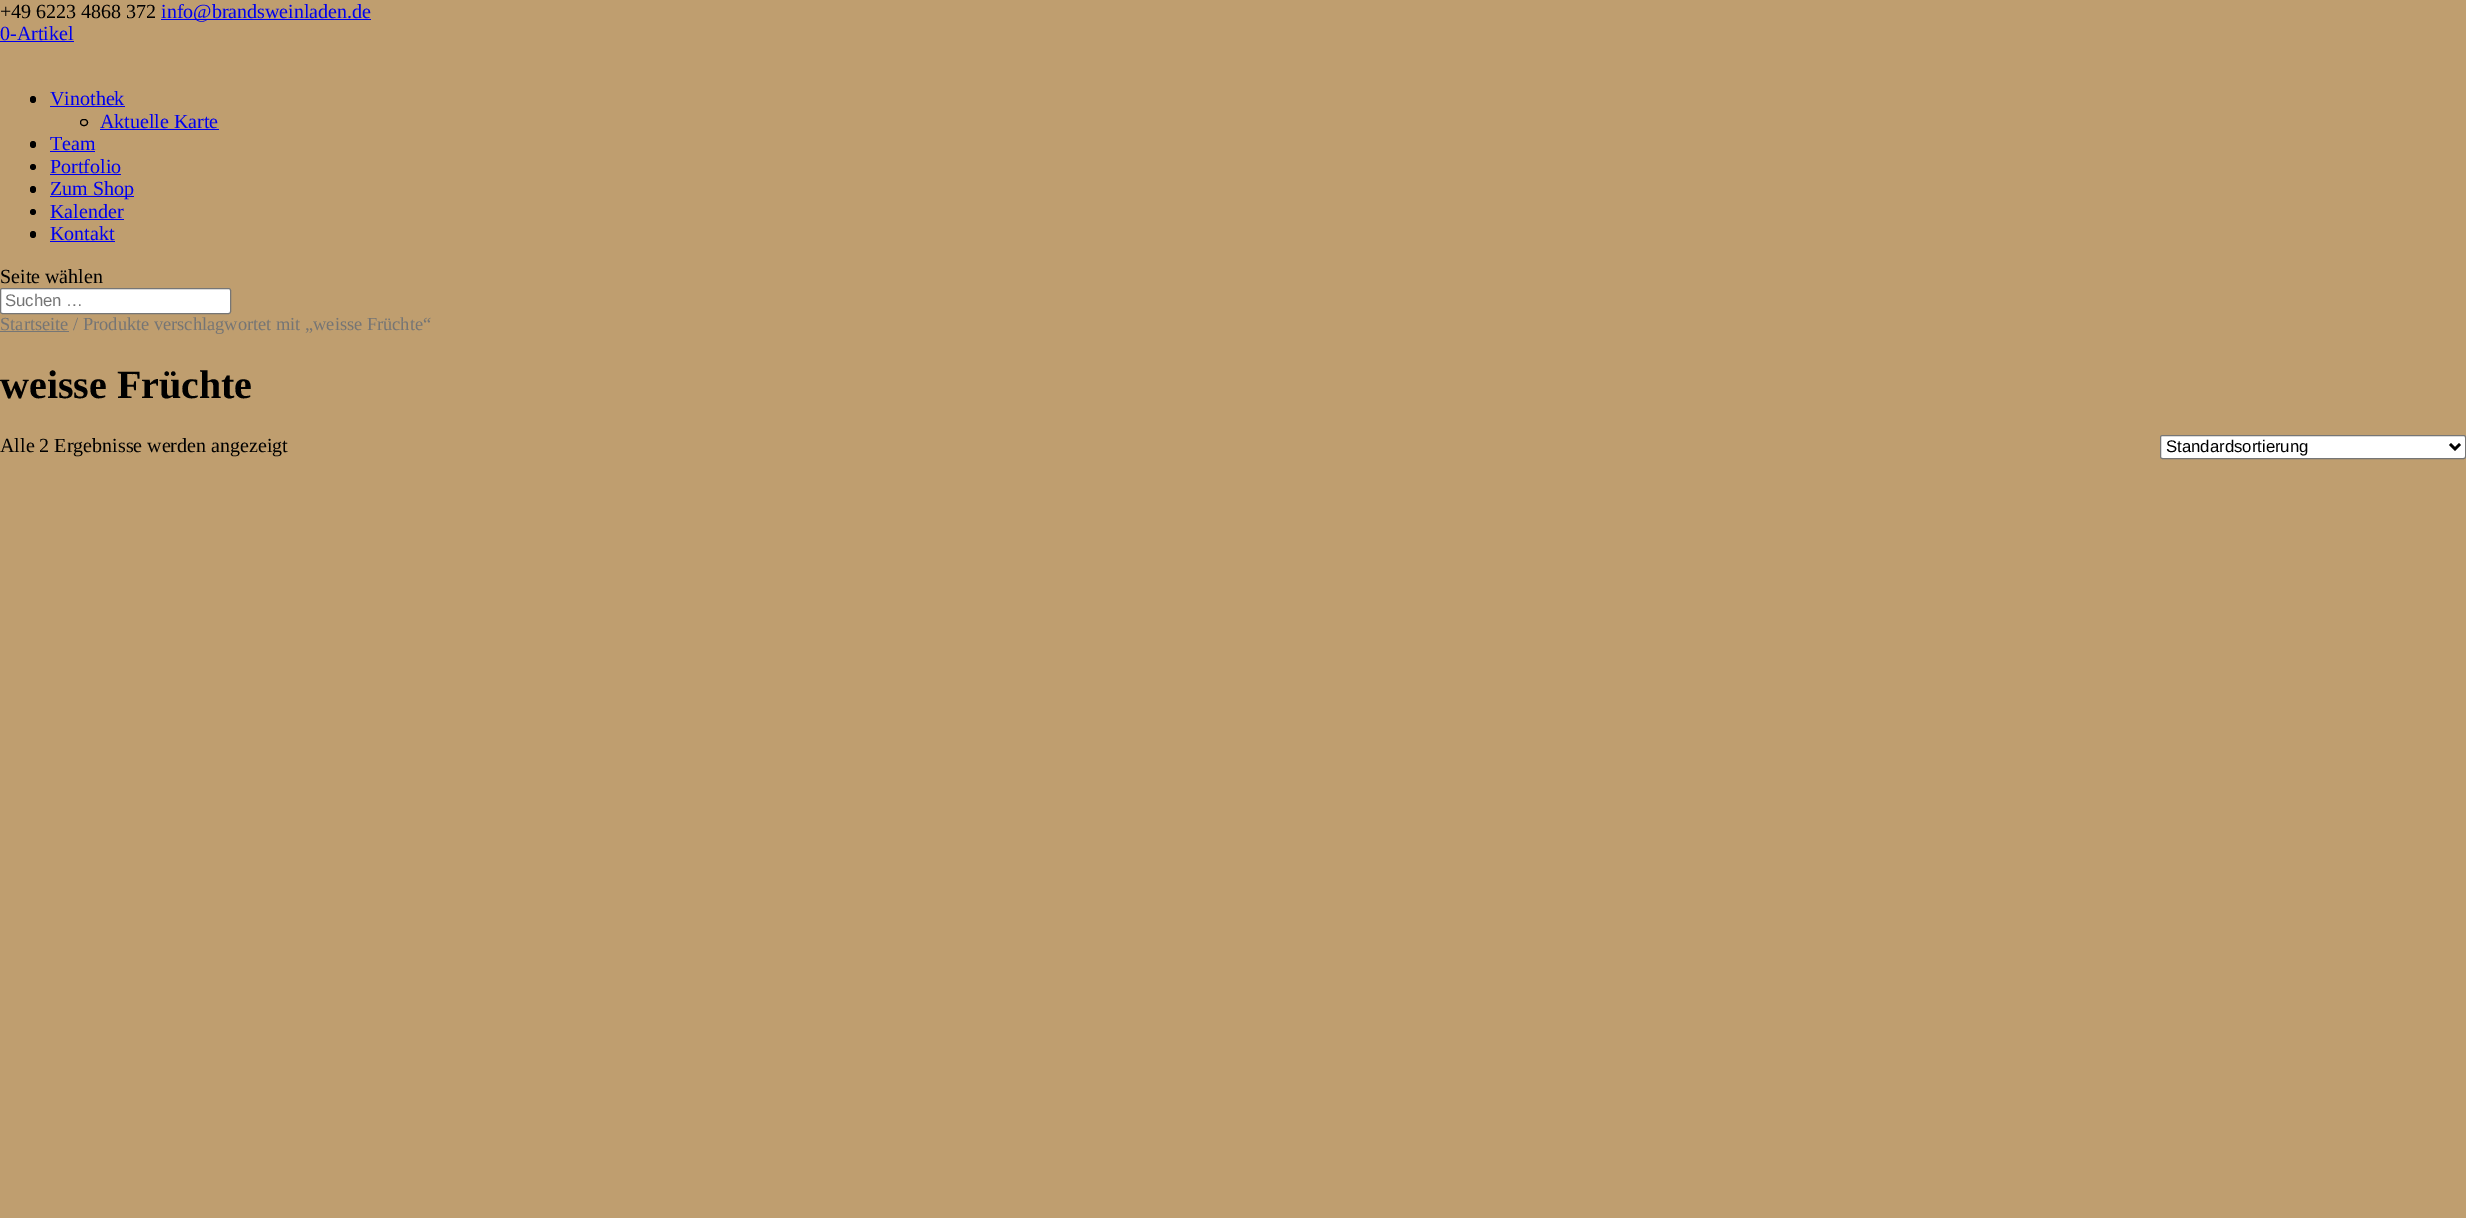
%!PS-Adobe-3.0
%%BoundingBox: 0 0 2466 1218
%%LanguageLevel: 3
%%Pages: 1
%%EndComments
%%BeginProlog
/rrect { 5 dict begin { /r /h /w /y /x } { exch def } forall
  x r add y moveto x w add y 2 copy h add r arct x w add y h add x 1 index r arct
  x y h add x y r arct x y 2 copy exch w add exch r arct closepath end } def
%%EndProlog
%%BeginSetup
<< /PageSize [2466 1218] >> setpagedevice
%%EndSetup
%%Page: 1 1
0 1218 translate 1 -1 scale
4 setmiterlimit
0.749 0.62 0.435 setrgbcolor
0 0 2466 1218 rectfill
0 0 0.933 setrgbcolor
161 19 210 1 rectfill
0 41 74 1 rectfill
0 setgray
30 96 6 7 3 rrect fill
0 0 0.933 setrgbcolor
50 106 75 1 rectfill
0 setgray
80.5 119.5 7 6 3 rrect stroke
0 0 0.933 setrgbcolor
100 129 119 1 rectfill
0 setgray
30 141 6 7 3 rrect fill
0 0 0.933 setrgbcolor
50 151 45 1 rectfill
0 setgray
newpath 33 167 3 0 360 arc closepath fill
0 0 0.933 setrgbcolor
50 174 71 1 rectfill
0 setgray
30 186 6 7 3 rrect fill
0 0 0.933 setrgbcolor
50 196 84 1 rectfill
0 setgray
newpath 33 212 3 0 360 arc closepath fill
0 0 0.933 setrgbcolor
50 219 74 1 rectfill
0 setgray
30 231 6 7 3 rrect fill
0 0 0.933 setrgbcolor
50 241 65 1 rectfill
1 setgray
0.5 288.5 230 25 2 rrect gsave fill grestore
0.463 setgray
stroke
0 331 69 1 rectfill
1 setgray
2160.5 435.5 305 23 2 rrect gsave fill grestore
0.463 setgray
stroke
0 setgray
2.5 setlinewidth
newpath 2450 444 moveto 2455 449 lineto 2460 444 lineto stroke
/LiberationSerif-Regular [20 0 0 -20 0 0] selectfont
0 18 moveto (+49 6223 4868 372) show
0 0 0.933 setrgbcolor
161 18 moveto (info@brandsweinladen.de) show
0 40 moveto (0-Artikel) show
50 105 moveto (Vinothek) show
100 128 moveto (Aktuelle Karte) show
50 150 moveto (Team) show
50 173 moveto (Portfolio) show
50 195 moveto (Zum Shop) show
50 218 moveto (Kalender) show
50 240 moveto (Kontakt) show
0 setgray
0 283 moveto (Seite wählen) show
/LiberationSans-Regular [16.75 0 0 -16.75 0 0] selectfont
0.459 setgray
5 306 moveto (Suchen …) show
/LiberationSerif-Regular [18.4 0 0 -18.4 0 0] selectfont
0 330 moveto (Startseite / Produkte verschlagwortet mit „weisse Früchte“) show
/LiberationSerif-Bold [40 0 0 -40 0 0] selectfont
0 setgray
0 398 moveto (weisse Früchte) show
/LiberationSerif-Regular [20 0 0 -20 0 0] selectfont
0 452 moveto (Alle 2 Ergebnisse werden angezeigt) show
/LiberationSans-Regular [16.75 0 0 -16.75 0 0] selectfont
2166 452 moveto (Standardsortierung) show
showpage
%%EOF
